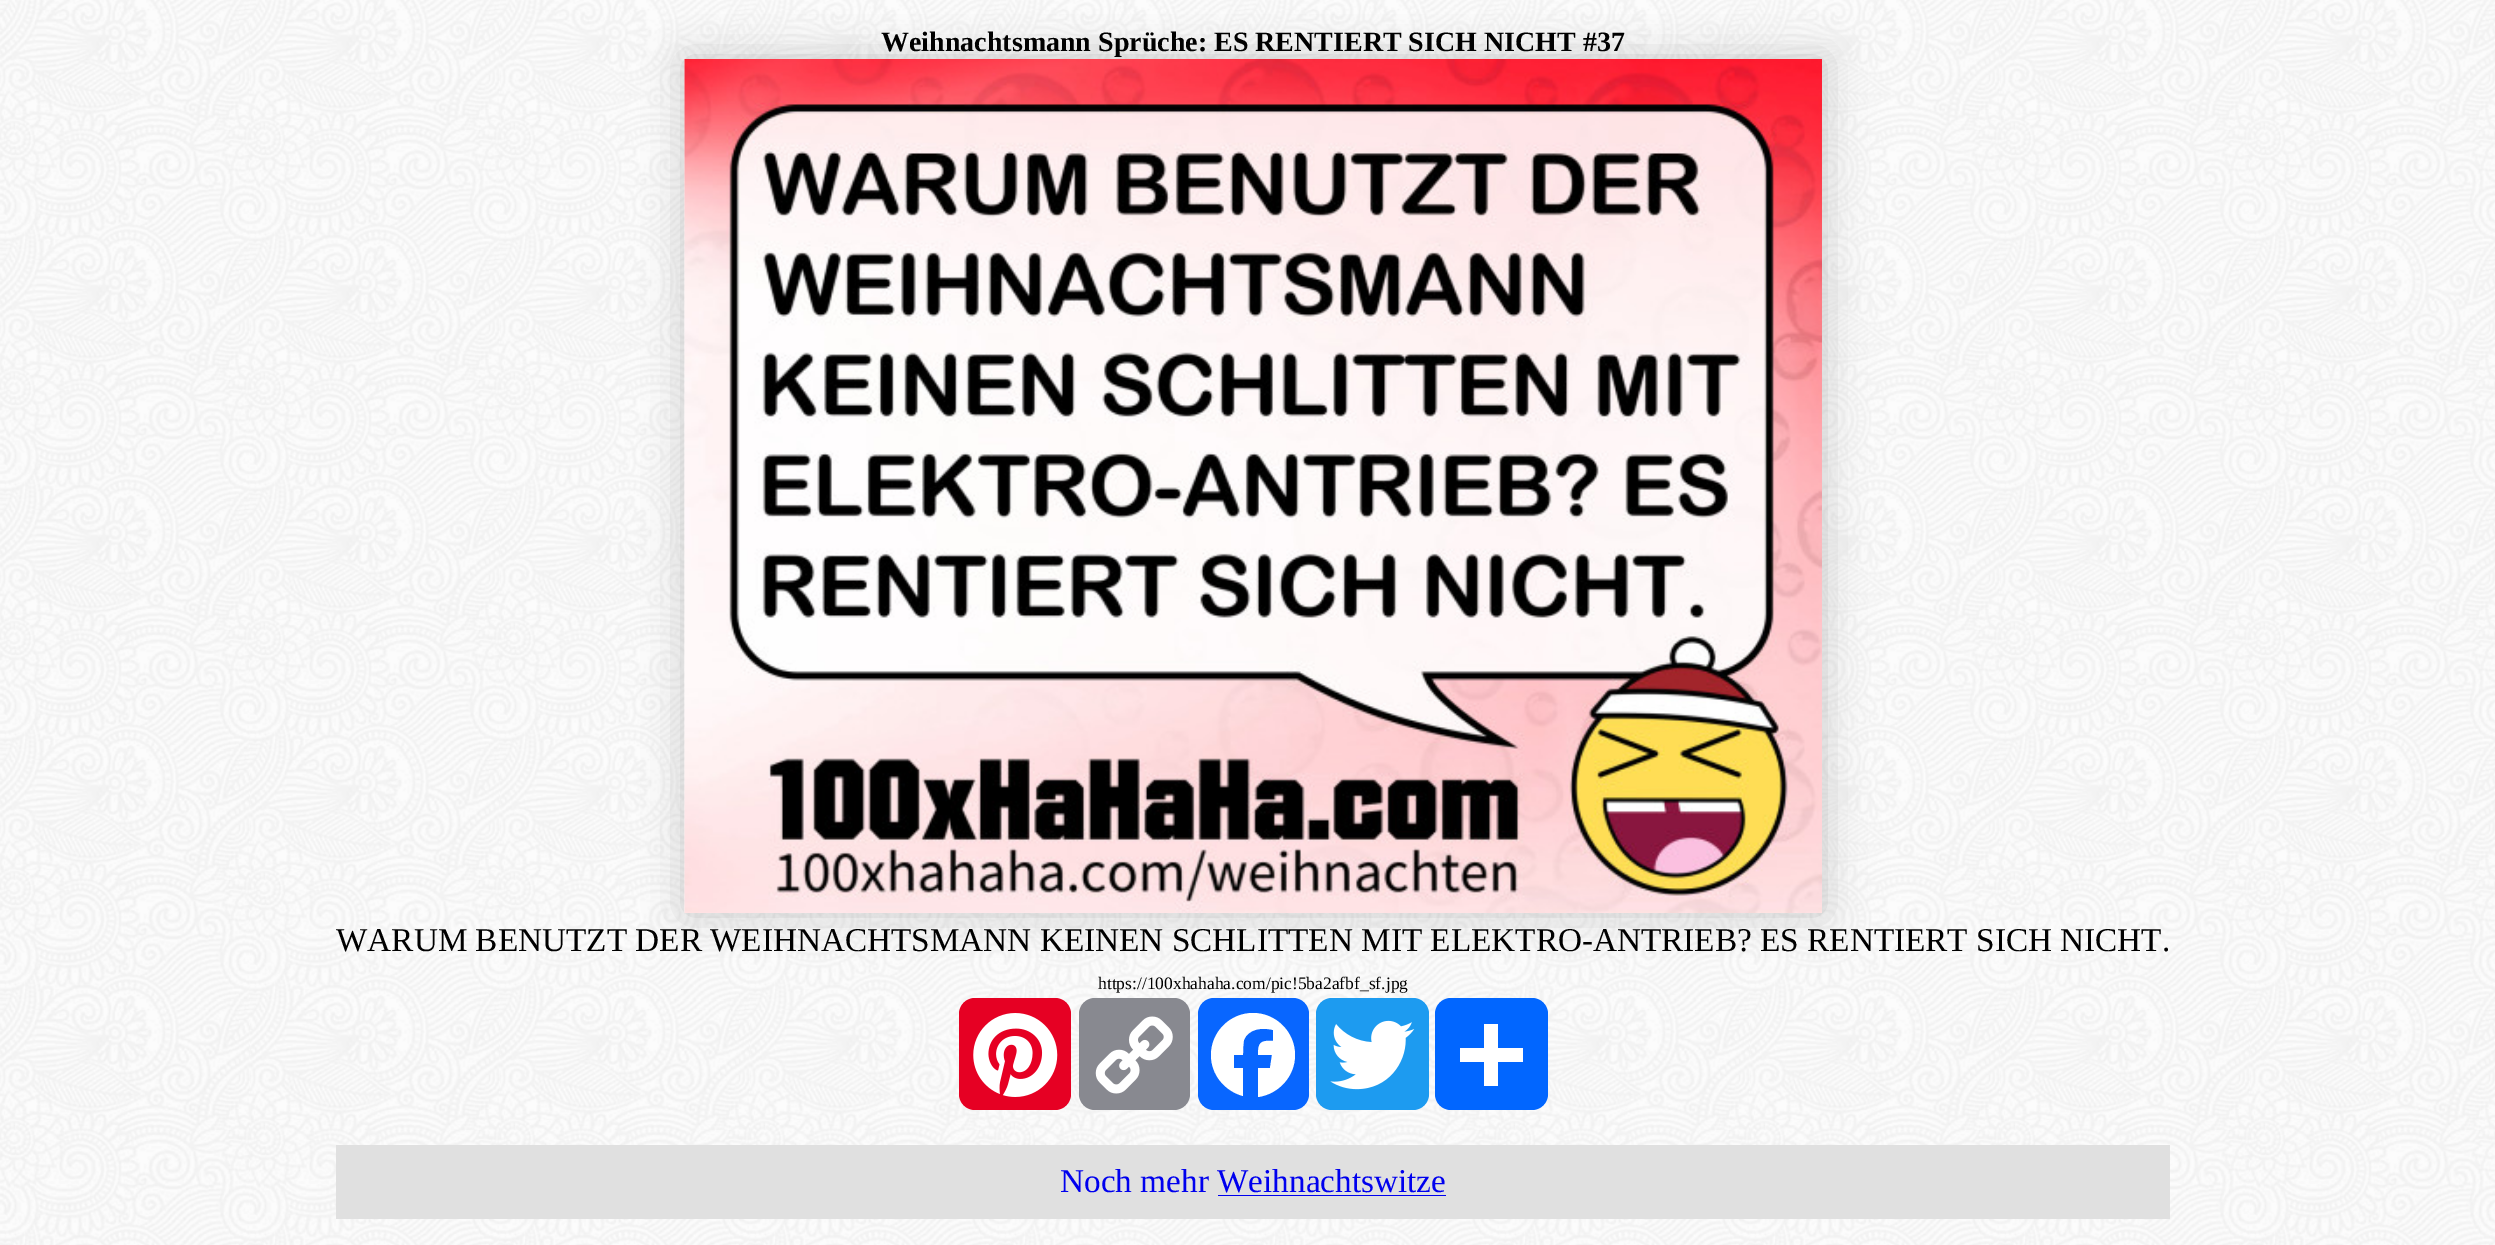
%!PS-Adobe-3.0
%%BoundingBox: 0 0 2495 1245
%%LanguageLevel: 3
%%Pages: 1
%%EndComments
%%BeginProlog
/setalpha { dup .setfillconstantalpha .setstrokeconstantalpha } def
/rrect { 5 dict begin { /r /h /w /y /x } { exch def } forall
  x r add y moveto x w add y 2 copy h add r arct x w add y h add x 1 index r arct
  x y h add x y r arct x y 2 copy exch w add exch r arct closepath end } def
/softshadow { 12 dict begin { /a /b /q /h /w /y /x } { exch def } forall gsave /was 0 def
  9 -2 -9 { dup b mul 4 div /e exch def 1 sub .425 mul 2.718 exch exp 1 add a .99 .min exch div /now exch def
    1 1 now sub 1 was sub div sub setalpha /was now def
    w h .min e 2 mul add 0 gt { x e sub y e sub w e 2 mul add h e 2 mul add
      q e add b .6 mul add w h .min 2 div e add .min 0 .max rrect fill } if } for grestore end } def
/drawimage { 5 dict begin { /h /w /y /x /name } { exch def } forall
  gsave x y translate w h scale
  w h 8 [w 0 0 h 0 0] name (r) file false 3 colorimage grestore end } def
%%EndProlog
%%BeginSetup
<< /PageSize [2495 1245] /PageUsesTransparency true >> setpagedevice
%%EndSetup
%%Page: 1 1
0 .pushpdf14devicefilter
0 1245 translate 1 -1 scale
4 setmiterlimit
1 setgray
0 0 2495 1245 rectfill
(images/1.raw) 0 0 2495 1245 drawimage
0 setgray
685 59 1138 854 0 20 0.2 softshadow
(images/2.raw) 684 59 1138 854 drawimage
0.902 0 0.137 setrgbcolor
959 998 112 112 16 rrect fill
(images/3.raw) 973 1013 85 84 drawimage
0.533 0.537 0.565 setrgbcolor
1079 998 111 112 16 rrect fill
(images/4.raw) 1095 1016 78 78 drawimage
0.031 0.4 1 setrgbcolor
1198 998 111 112 16 rrect fill
1 setgray
newpath 1295 1055 moveto 1295 1032 1276 1013 1253 1013 curveto 1230 1013 1211 1032 1211 1055 curveto 1211 1075 1225 1091 1243 1096 curveto 1243 1068 lineto 1234 1068 lineto 1234 1055 lineto 1243 1055 lineto 1243 1050 1243 1045 1244 1040 curveto 1248 1029 1262 1027 1273 1030 curveto 1273 1041 lineto 1260 1040 1258 1043 1258 1055 curveto 1272 1055 lineto 1270 1068 lineto 1258 1068 lineto 1258 1097 lineto 1279 1094 1295 1076 1295 1055 curveto fill
0.114 0.608 0.941 setrgbcolor
1316 998 113 112 16 rrect fill
(images/5.raw) 1330 1020 85 70 drawimage
0.004 0.4 1 setrgbcolor
1435 998 113 112 16 rrect fill
1 setgray
1484 1024 14 62 rectfill
1460 1048 63 14 rectfill
0.878 setgray
336 1145 1834 74 rectfill
0 0 0.933 setrgbcolor
1218 1195 228 1 rectfill
/LiberationSerif-Bold [28 0 0 -28 0 0] selectfont
0 setgray
881 51 moveto (Weihnachtsmann Sprüche: ES RENTIERT SICH NICHT #37) show
/LiberationSerif-Regular [33.25 0 0 -33.25 0 0] selectfont
336 951 moveto (WARUM BENUTZT DER WEIHNACHTSMANN KEINEN SCHLITTEN MIT ELEKTRO-ANTRIEB? ES RENTIERT SICH NICHT.) show
/LiberationSerif-Regular [17.5 0 0 -17.5 0 0] selectfont
1098 989 moveto (https://100xhahaha.com/pic!5ba2afbf_sf.jpg) show
/LiberationSerif-Regular [33.25 0 0 -33.25 0 0] selectfont
0 0 0.933 setrgbcolor
1060 1192 moveto (Noch mehr Weihnachtswitze) show
.poppdf14devicefilter showpage
%%EOF
